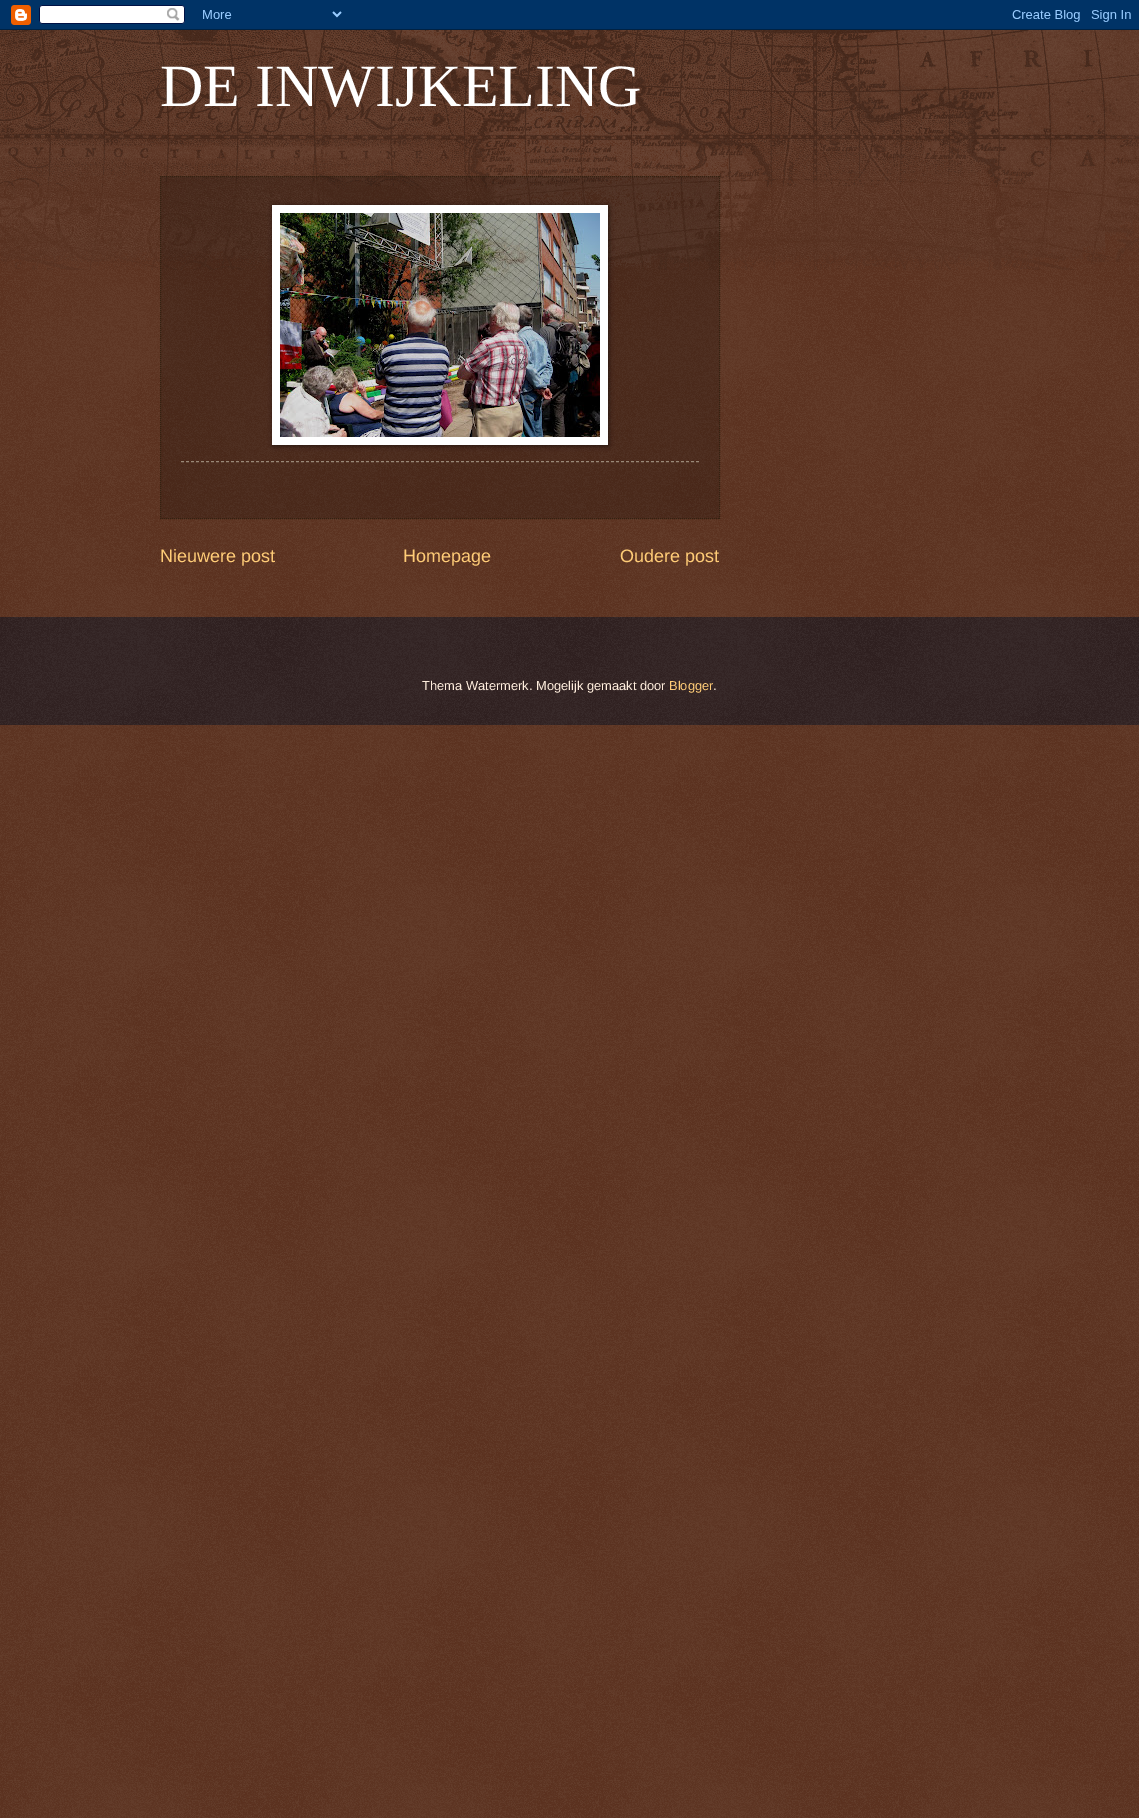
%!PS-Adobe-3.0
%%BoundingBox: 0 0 1139 1818
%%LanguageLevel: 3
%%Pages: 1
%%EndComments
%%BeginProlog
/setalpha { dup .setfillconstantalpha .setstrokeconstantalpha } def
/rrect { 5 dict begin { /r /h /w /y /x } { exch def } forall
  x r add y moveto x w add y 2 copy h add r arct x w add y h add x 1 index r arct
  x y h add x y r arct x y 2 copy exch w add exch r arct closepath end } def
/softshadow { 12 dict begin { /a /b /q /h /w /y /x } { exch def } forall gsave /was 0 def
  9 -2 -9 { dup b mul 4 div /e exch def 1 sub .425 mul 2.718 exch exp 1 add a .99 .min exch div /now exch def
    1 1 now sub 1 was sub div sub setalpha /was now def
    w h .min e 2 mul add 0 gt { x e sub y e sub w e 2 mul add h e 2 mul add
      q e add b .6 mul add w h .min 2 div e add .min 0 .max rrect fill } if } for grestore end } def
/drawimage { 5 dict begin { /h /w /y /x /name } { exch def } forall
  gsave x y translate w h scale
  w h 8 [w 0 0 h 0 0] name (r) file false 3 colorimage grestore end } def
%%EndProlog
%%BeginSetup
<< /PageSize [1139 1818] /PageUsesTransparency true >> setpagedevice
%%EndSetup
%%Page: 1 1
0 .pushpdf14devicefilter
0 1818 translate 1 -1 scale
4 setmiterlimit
0.267 0.082 0 setrgbcolor
0 0 1139 1818 rectfill
(images/1.raw) 0 30 1139 1788 drawimage
(images/2.raw) 0 0 1139 30 drawimage
(images/3.raw) 0 30 1139 240 drawimage
0.2 setalpha
0 setgray
160 176 560 343 rectfill
1 setalpha
0.2 0.133 0.067 setrgbcolor
[1 1] 0 setdash
newpath 160 176.5 moveto 720 176.5 lineto stroke
newpath 719.5 176 moveto 719.5 519 lineto stroke
newpath 160 518.5 moveto 720 518.5 lineto stroke
newpath 160.5 176 moveto 160.5 519 lineto stroke
0 setgray
273 206 336 240 0 2.5 0.5 softshadow
1 setgray
272 205 336 240 rectfill
(images/4.raw) 280 213 320 224 drawimage
0.6 0.533 0.467 setrgbcolor
[3 2] 0 setdash
newpath 181 461.5 moveto 699 461.5 lineto stroke
0.067 0 0 setrgbcolor
0 617 1139 108 rectfill
(images/5.raw) 0 617 1139 108 drawimage
/LiberationSerif-Regular [60 0 0 -60 0 0] selectfont
1 setgray
160 106 moveto (DE INWIJKELING) show
/LiberationSans-Regular [18 0 0 -18 0 0] selectfont
1 0.8 0.467 setrgbcolor
160 562 moveto (Nieuwere post) show
403 562 moveto (Homepage) show
620 562 moveto (Oudere post) show
/LiberationSans-Regular [12.9 0 0 -12.9 0 0] selectfont
1 0.933 0.867 setrgbcolor
422 690 moveto (Thema Watermerk. Mogelijk gemaakt door) show
1 0.8 0.467 setrgbcolor
669 690 moveto (Blogger) show
1 0.933 0.867 setrgbcolor
713 690 moveto (.) show
.poppdf14devicefilter showpage
%%EOF
